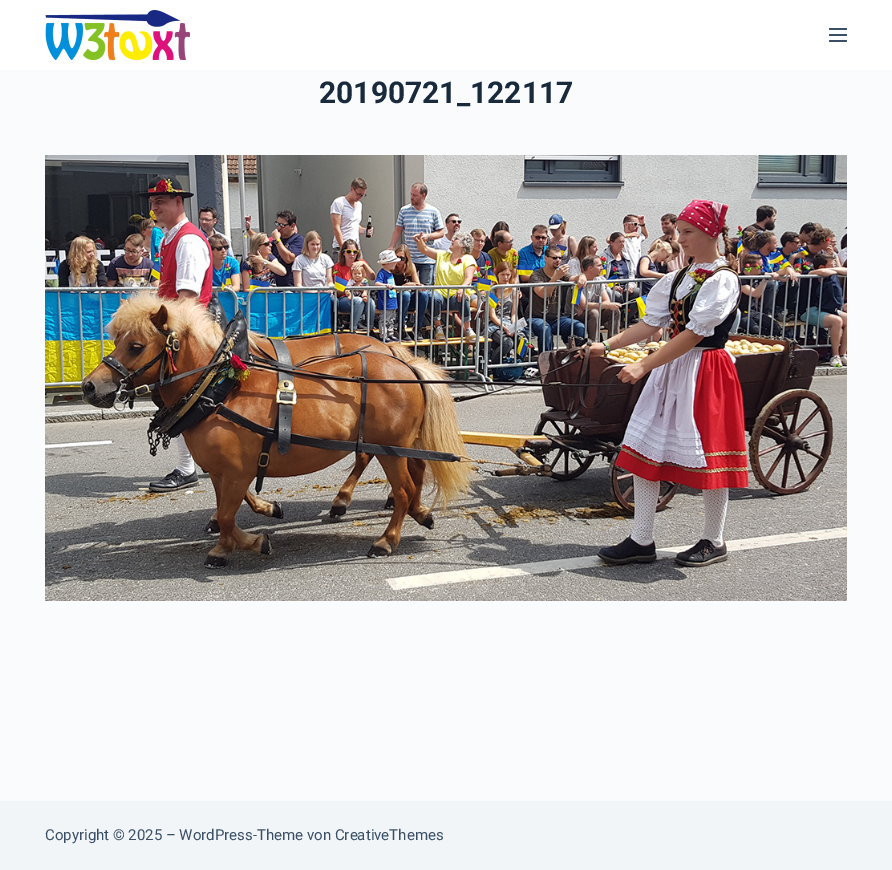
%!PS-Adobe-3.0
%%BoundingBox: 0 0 892 870
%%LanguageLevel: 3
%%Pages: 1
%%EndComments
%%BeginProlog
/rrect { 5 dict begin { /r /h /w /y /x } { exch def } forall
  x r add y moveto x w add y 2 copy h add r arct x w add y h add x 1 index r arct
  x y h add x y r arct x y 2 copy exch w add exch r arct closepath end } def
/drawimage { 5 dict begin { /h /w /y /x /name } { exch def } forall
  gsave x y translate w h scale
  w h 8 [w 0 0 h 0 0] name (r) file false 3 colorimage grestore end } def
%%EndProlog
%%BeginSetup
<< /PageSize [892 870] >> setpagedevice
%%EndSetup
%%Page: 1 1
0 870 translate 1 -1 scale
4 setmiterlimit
0.98 0.984 0.988 setrgbcolor
0 0 892 870 rectfill
1 setgray
0 0 892 70 rectfill
(images/1.raw) 45 10 145 50 drawimage
0.227 0.31 0.4 setrgbcolor
829 28 18 2 1 rrect fill
829 34 18 2 1 rrect fill
829 40 18 2 1 rrect fill
(images/2.raw) 45 155 802 446 drawimage
0.949 0.961 0.969 setrgbcolor
0 801 892 69 rectfill
/Roboto-Bold [30 0 0 -30 0 0] selectfont
0.098 0.165 0.239 setrgbcolor
319 103 moveto (20190721_122117) show
/Roboto-Regular [15 0 0 -15 0 0] selectfont
0.227 0.31 0.4 setrgbcolor
45 840 moveto (Copyright © 2025 – WordPress-Theme von CreativeThemes) show
showpage
%%EOF
